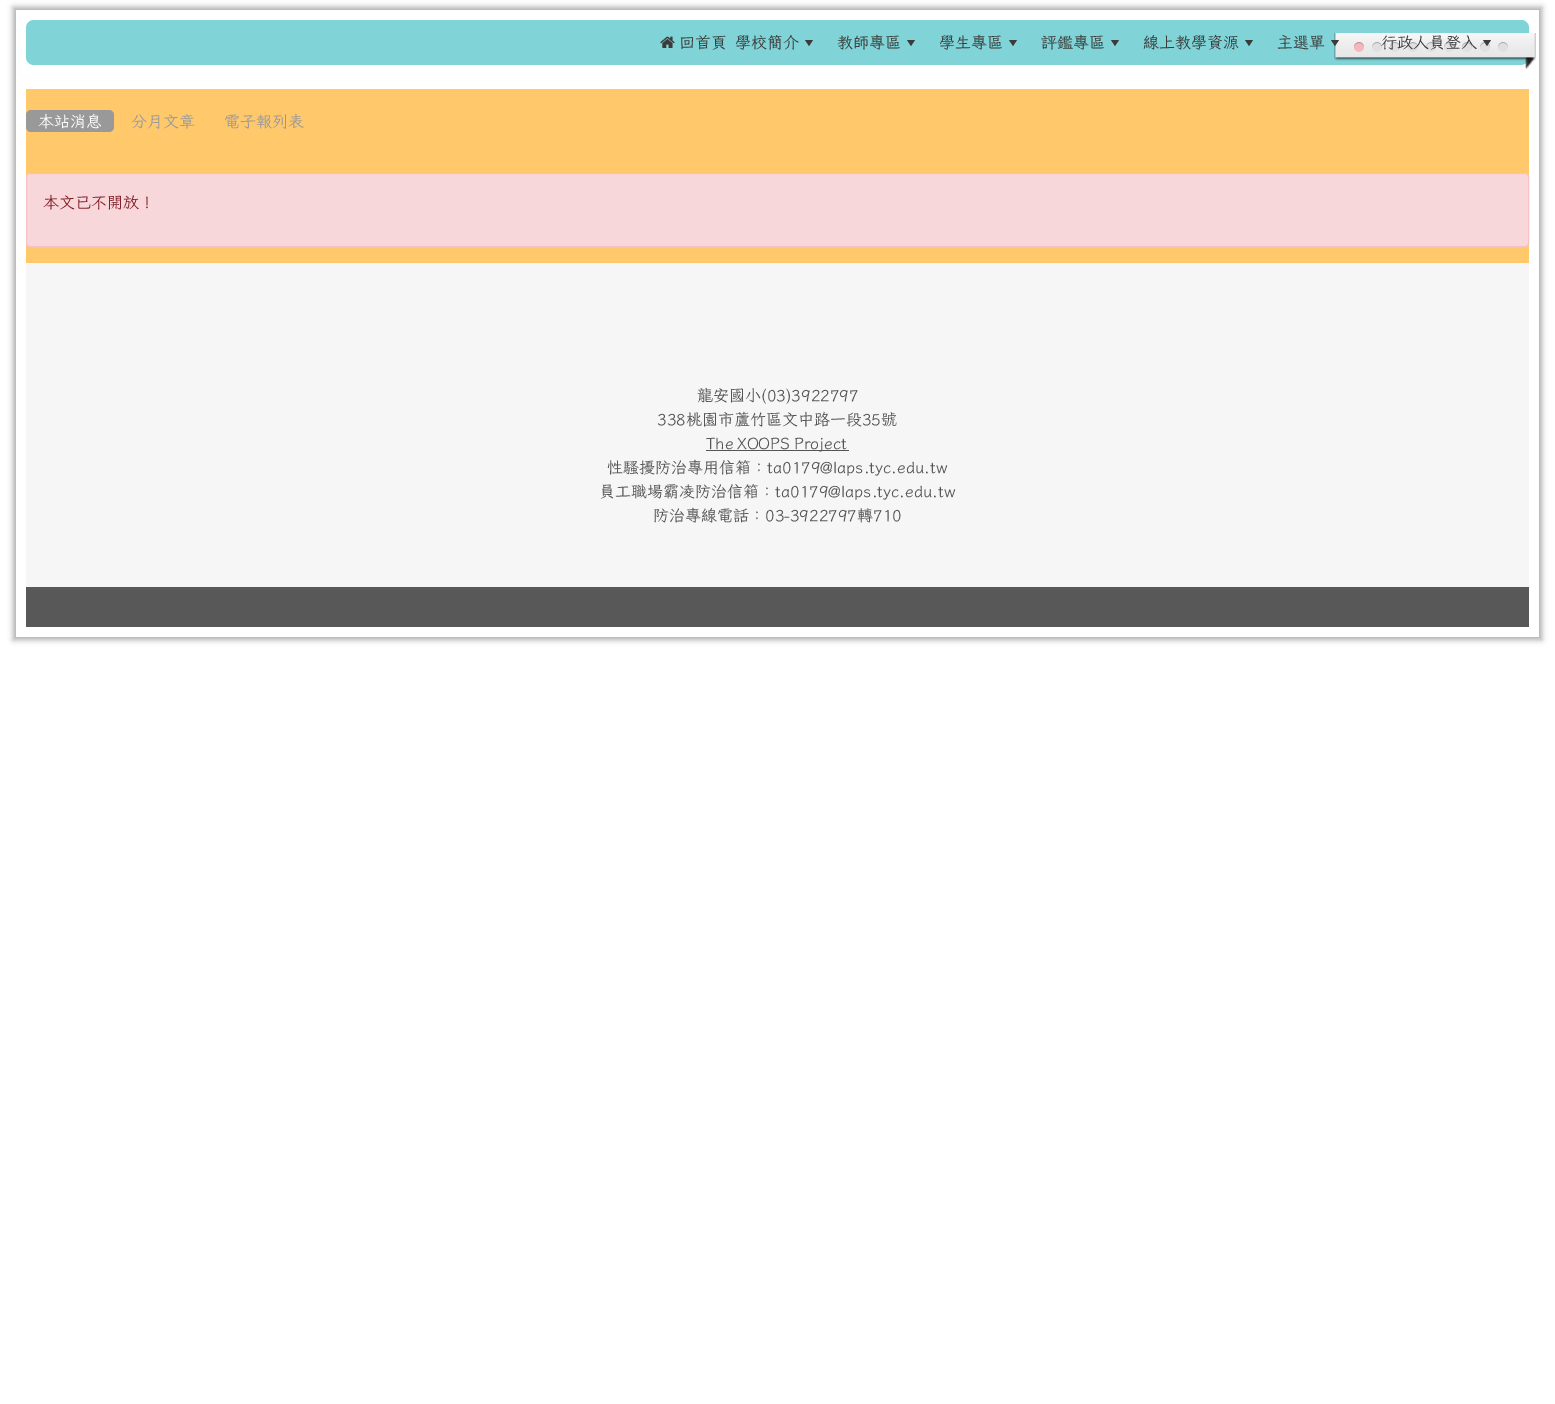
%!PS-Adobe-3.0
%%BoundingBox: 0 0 1555 1404
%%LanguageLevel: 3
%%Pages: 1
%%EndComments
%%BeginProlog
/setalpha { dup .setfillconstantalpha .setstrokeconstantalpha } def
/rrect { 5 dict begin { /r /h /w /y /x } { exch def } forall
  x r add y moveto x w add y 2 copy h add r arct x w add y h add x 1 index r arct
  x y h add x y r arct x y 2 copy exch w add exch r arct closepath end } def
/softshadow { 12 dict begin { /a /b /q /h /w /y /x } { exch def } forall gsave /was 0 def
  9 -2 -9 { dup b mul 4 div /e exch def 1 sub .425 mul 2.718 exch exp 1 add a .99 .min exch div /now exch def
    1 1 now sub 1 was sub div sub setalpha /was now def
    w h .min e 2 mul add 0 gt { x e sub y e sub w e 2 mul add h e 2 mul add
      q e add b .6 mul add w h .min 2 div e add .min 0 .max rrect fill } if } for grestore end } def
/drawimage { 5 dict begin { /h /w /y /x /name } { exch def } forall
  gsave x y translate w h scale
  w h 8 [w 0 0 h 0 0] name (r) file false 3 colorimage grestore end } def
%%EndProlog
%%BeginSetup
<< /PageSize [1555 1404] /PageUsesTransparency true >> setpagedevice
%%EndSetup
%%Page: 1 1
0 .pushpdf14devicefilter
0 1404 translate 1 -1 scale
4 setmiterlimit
1 setgray
0 0 1555 1404 rectfill
gsave
newpath 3 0 moveto 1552 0 lineto 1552 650 lineto 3 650 lineto closepath 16 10 moveto 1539 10 lineto 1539 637 lineto 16 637 lineto closepath eoclip newpath
0.196 setgray
13 7 1529 633 0 3 0.4 softshadow
grestore
0.502 0.827 0.839 setrgbcolor
26 20 1503 45 8 rrect fill
(images/1.raw) 1334 33 202 36 drawimage
(images/2.raw) 1354 42 10 10 drawimage
(images/3.raw) 1372 42 10 10 drawimage
(images/3.raw) 1390 42 10 10 drawimage
(images/3.raw) 1408 42 10 10 drawimage
(images/3.raw) 1426 42 10 10 drawimage
(images/3.raw) 1444 42 10 10 drawimage
(images/3.raw) 1462 42 10 10 drawimage
(images/3.raw) 1480 42 10 10 drawimage
(images/3.raw) 1498 42 10 10 drawimage
(images/4.raw) 660 36 15 12 drawimage
0.231 setgray
newpath 805 40 moveto 813 40 lineto 809 46 lineto closepath fill
newpath 907 40 moveto 915 40 lineto 911 46 lineto closepath fill
newpath 1009 40 moveto 1017 40 lineto 1013 46 lineto closepath fill
newpath 1111 40 moveto 1119 40 lineto 1115 46 lineto closepath fill
newpath 1245 40 moveto 1253 40 lineto 1249 46 lineto closepath fill
newpath 1331 40 moveto 1339 40 lineto 1335 46 lineto closepath fill
newpath 1483 40 moveto 1491 40 lineto 1487 46 lineto closepath fill
1 0.784 0.42 setrgbcolor
26 89 1503 174 rectfill
0.6 setgray
26 110 88 22 5 rrect fill
0.973 0.843 0.855 setrgbcolor
26.5 173.5 1502 73 3.5 rrect gsave fill grestore
0.961 0.761 0.78 setrgbcolor
stroke
0.965 setgray
26 263 1503 324 rectfill
0.333 setgray
706 450 143 1 rectfill
0.345 setgray
26 587 1503 40 rectfill
/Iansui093-Regular [16 0 0 -16 0 0] selectfont
0.231 setgray
679 48 moveto (回首頁) show
735 48 moveto (學校簡介) show
837 48 moveto (教師專區) show
939 48 moveto (學生專區) show
1041 48 moveto (評鑑專區) show
1143 48 moveto (線上教學資源) show
1277 48 moveto (主選單) show
1381 48 moveto (行政人員登入) show
1 setgray
38 127 moveto (本站消息) show
0.6 setgray
131 127 moveto (分月文章) show
224 127 moveto (電子報列表) show
0.518 0.125 0.161 setrgbcolor
43 208 moveto (本文已不開放！) show
0.333 setgray
697 401 moveto (龍安國小\(03\)3922797) show
657 425 moveto (338桃園市蘆竹區文中路一段35號) show
706 449 moveto -2 0 32 (The XOOPS Project) widthshow
607 473 moveto (性騷擾防治專用信箱：ta0179@laps.tyc.edu.tw) show
599 497 moveto (員工職場霸凌防治信箱：ta0179@laps.tyc.edu.tw) show
653 521 moveto (防治專線電話：03-3922797轉710) show
.poppdf14devicefilter showpage
%%EOF
